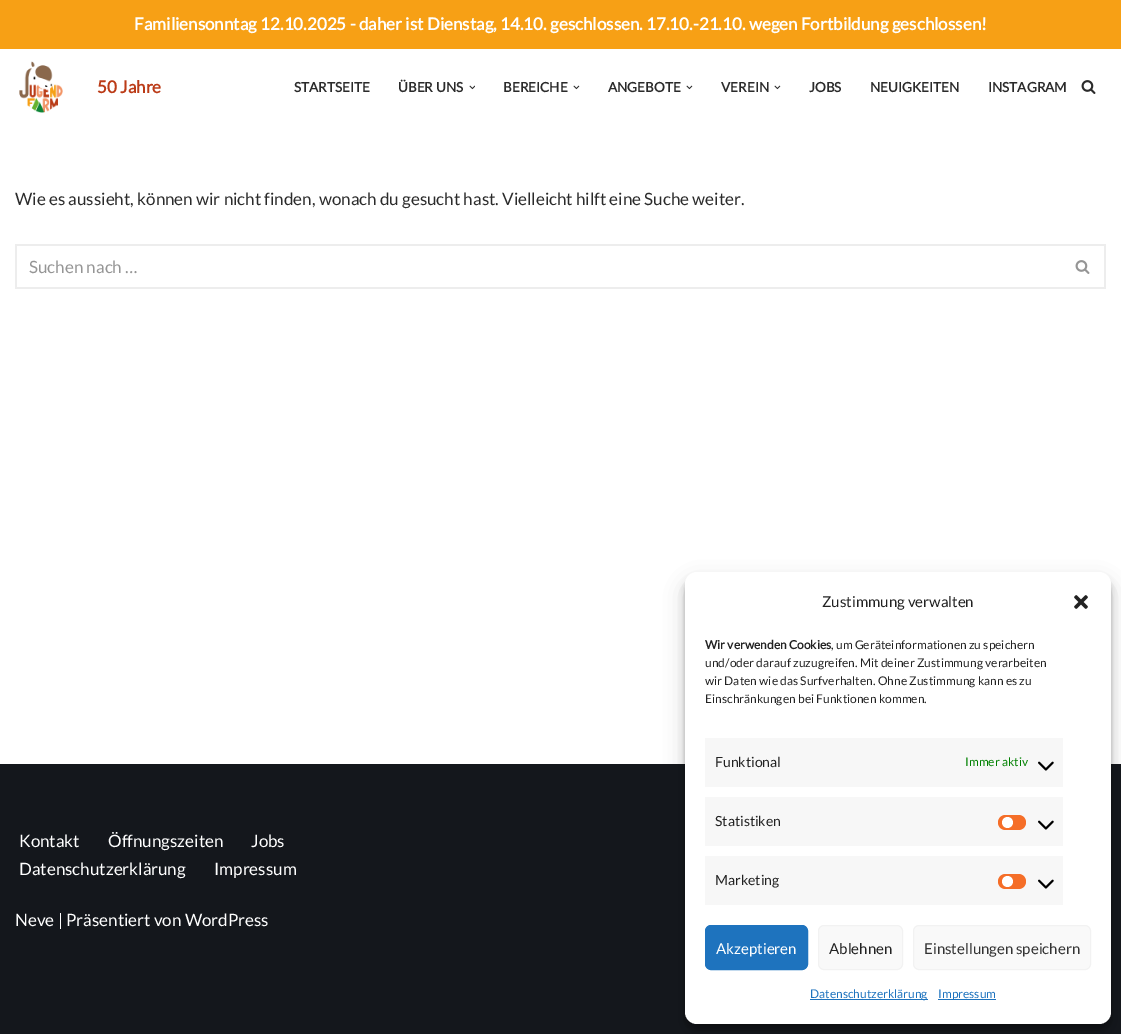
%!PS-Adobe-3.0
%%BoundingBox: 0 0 1121 1034
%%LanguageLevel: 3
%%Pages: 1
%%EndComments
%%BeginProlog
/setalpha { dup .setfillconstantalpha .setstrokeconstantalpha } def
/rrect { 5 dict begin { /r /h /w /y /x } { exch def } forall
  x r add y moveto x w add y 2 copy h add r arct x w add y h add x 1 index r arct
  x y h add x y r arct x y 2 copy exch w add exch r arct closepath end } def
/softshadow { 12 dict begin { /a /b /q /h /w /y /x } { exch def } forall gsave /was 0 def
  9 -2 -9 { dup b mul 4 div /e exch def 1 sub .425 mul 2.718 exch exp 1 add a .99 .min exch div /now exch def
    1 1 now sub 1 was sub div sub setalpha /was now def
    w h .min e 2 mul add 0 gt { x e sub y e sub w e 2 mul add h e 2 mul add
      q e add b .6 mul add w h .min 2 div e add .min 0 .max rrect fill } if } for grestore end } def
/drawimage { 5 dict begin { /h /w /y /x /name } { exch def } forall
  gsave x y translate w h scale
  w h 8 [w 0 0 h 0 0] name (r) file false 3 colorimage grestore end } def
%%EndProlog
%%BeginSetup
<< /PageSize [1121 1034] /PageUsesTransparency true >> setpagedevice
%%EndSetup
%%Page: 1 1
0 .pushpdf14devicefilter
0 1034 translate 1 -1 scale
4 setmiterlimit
1 setgray
0 0 1121 1034 rectfill
0.969 0.627 0.082 setrgbcolor
0 0 1121 49 rectfill
(images/1.raw) 19 61 44 52 drawimage
(images/2.raw) 469 85 6 5 drawimage
(images/3.raw) 573 85 7 5 drawimage
(images/3.raw) 686 85 7 5 drawimage
(images/3.raw) 774 85 7 5 drawimage
(images/4.raw) 1081 80 15 14 drawimage
0.929 setgray
15 244 1091 2 rectfill
15 287 1046 2 rectfill
15 244 2 45 rectfill
1104 244 2 45 rectfill
1061 287 45 2 rectfill
(images/5.raw) 1075 260 15 14 drawimage
0.078 0.09 0.11 setrgbcolor
0 764 1121 270 rectfill
0 setgray
685 578 426 452 12 3 0.23 softshadow
685 582 426 452 12 10 0.19 softshadow
1 setgray
685 572 426 452 12 rrect fill
(images/6.raw) 1074 595 14 14 drawimage
0.969 setgray
705 738 358 49 rectfill
(images/7.raw) 1038 761 16 10 drawimage
705 797 358 49 rectfill
0.961 0.431 0.157 setrgbcolor
998 815 28 15 7.5 rrect fill
1 setgray
newpath 1007.5 822.5 5.5 0 360 arc closepath fill
(images/7.raw) 1038 820 16 10 drawimage
0.969 setgray
705 856 358 49 rectfill
0.961 0.431 0.157 setrgbcolor
998 874 28 15 7.5 rrect fill
1 setgray
newpath 1007.5 881.5 5.5 0 360 arc closepath fill
(images/7.raw) 1038 879 16 10 drawimage
0.118 0.451 0.745 setrgbcolor
705.5 925.5 102 44 5.5 rrect gsave fill grestore
stroke
0.976 setgray
818.5 925.5 84 44 5.5 rrect gsave fill grestore
0.949 setgray
stroke
0.976 setgray
913.5 925.5 177 44 5.5 rrect gsave fill grestore
0.949 setgray
stroke
0.118 0.451 0.745 setrgbcolor
810 999 118 1 rectfill
938 999 58 1 rectfill
/Lato-Bold [17 0 0 -17 0 0] selectfont
1 setgray
134 30 moveto (Familiensonntag 12.10.2025 - daher ist Dienstag, 14.10. geschlossen. 17.10.-21.10. wegen Fortbildung geschlossen!) show
0.733 0.231 0.09 setrgbcolor
97 93 moveto (50 Jahre) show
/Lato-Bold [13.5 0 0 -13.5 0 0] selectfont
0.169 setgray
294 92 moveto (STARTSEITE) show
398 92 moveto (ÜBER UNS) show
503 92 moveto (BEREICHE) show
608 92 moveto (ANGEBOTE) show
721 92 moveto (VEREIN) show
809 92 moveto (JOBS) show
870 92 moveto (NEUIGKEITEN) show
988 92 moveto (INSTAGRAM) show
/Lato-Regular [17 0 0 -17 0 0] selectfont
15 205 moveto (Wie es aussieht, können wir nicht finden, wonach du gesucht hast. Vielleicht hilft eine Suche weiter.) show
0.584 setgray
29 273 moveto (Suchen nach …) show
1 setgray
19 847 moveto (Kontakt) show
108 847 moveto (Öffnungszeiten) show
251 847 moveto (Jobs) show
19 875 moveto (Datenschutzerklärung) show
214 875 moveto (Impressum) show
15 926 moveto (Neve | Präsentiert von WordPress) show
/Lato-Regular [15 0 0 -15 0 0] selectfont
0.133 setgray
822 607 moveto (Zustimmung verwalten) show
/Lato-Bold [12 0 0 -12 0 0] selectfont
705 649 moveto (Wir verwenden Cookies) show
/Lato-Regular [12 0 0 -12 0 0] selectfont
831 649 moveto (, um Geräteinformationen zu speichern) show
705 667 moveto (und/oder darauf zuzugreifen. Mit deiner Zustimmung verarbeiten) show
705 685 moveto (wir Daten wie das Surfverhalten. Ohne Zustimmung kann es zu) show
705 703 moveto (Einschränkungen bei Funktionen kommen.) show
/Lato-Regular [14 0 0 -14 0 0] selectfont
715 767 moveto (Funktional) show
/Lato-Regular [12 0 0 -12 0 0] selectfont
0 0.502 0 setrgbcolor
965 766 moveto (Immer aktiv) show
/Lato-Regular [14 0 0 -14 0 0] selectfont
0.133 setgray
715 826 moveto (Statistiken) show
715 885 moveto (Marketing) show
/Lato-Regular [15 0 0 -15 0 0] selectfont
1 setgray
716 954 moveto (Akzeptieren) show
0.133 setgray
829 954 moveto (Ablehnen) show
0.2 setgray
924 954 moveto (Einstellungen speichern) show
/Lato-Regular [12 0 0 -12 0 0] selectfont
0.118 0.451 0.745 setrgbcolor
810 998 moveto (Datenschutzerklärung) show
938 998 moveto (Impressum) show
.poppdf14devicefilter showpage
%%EOF
